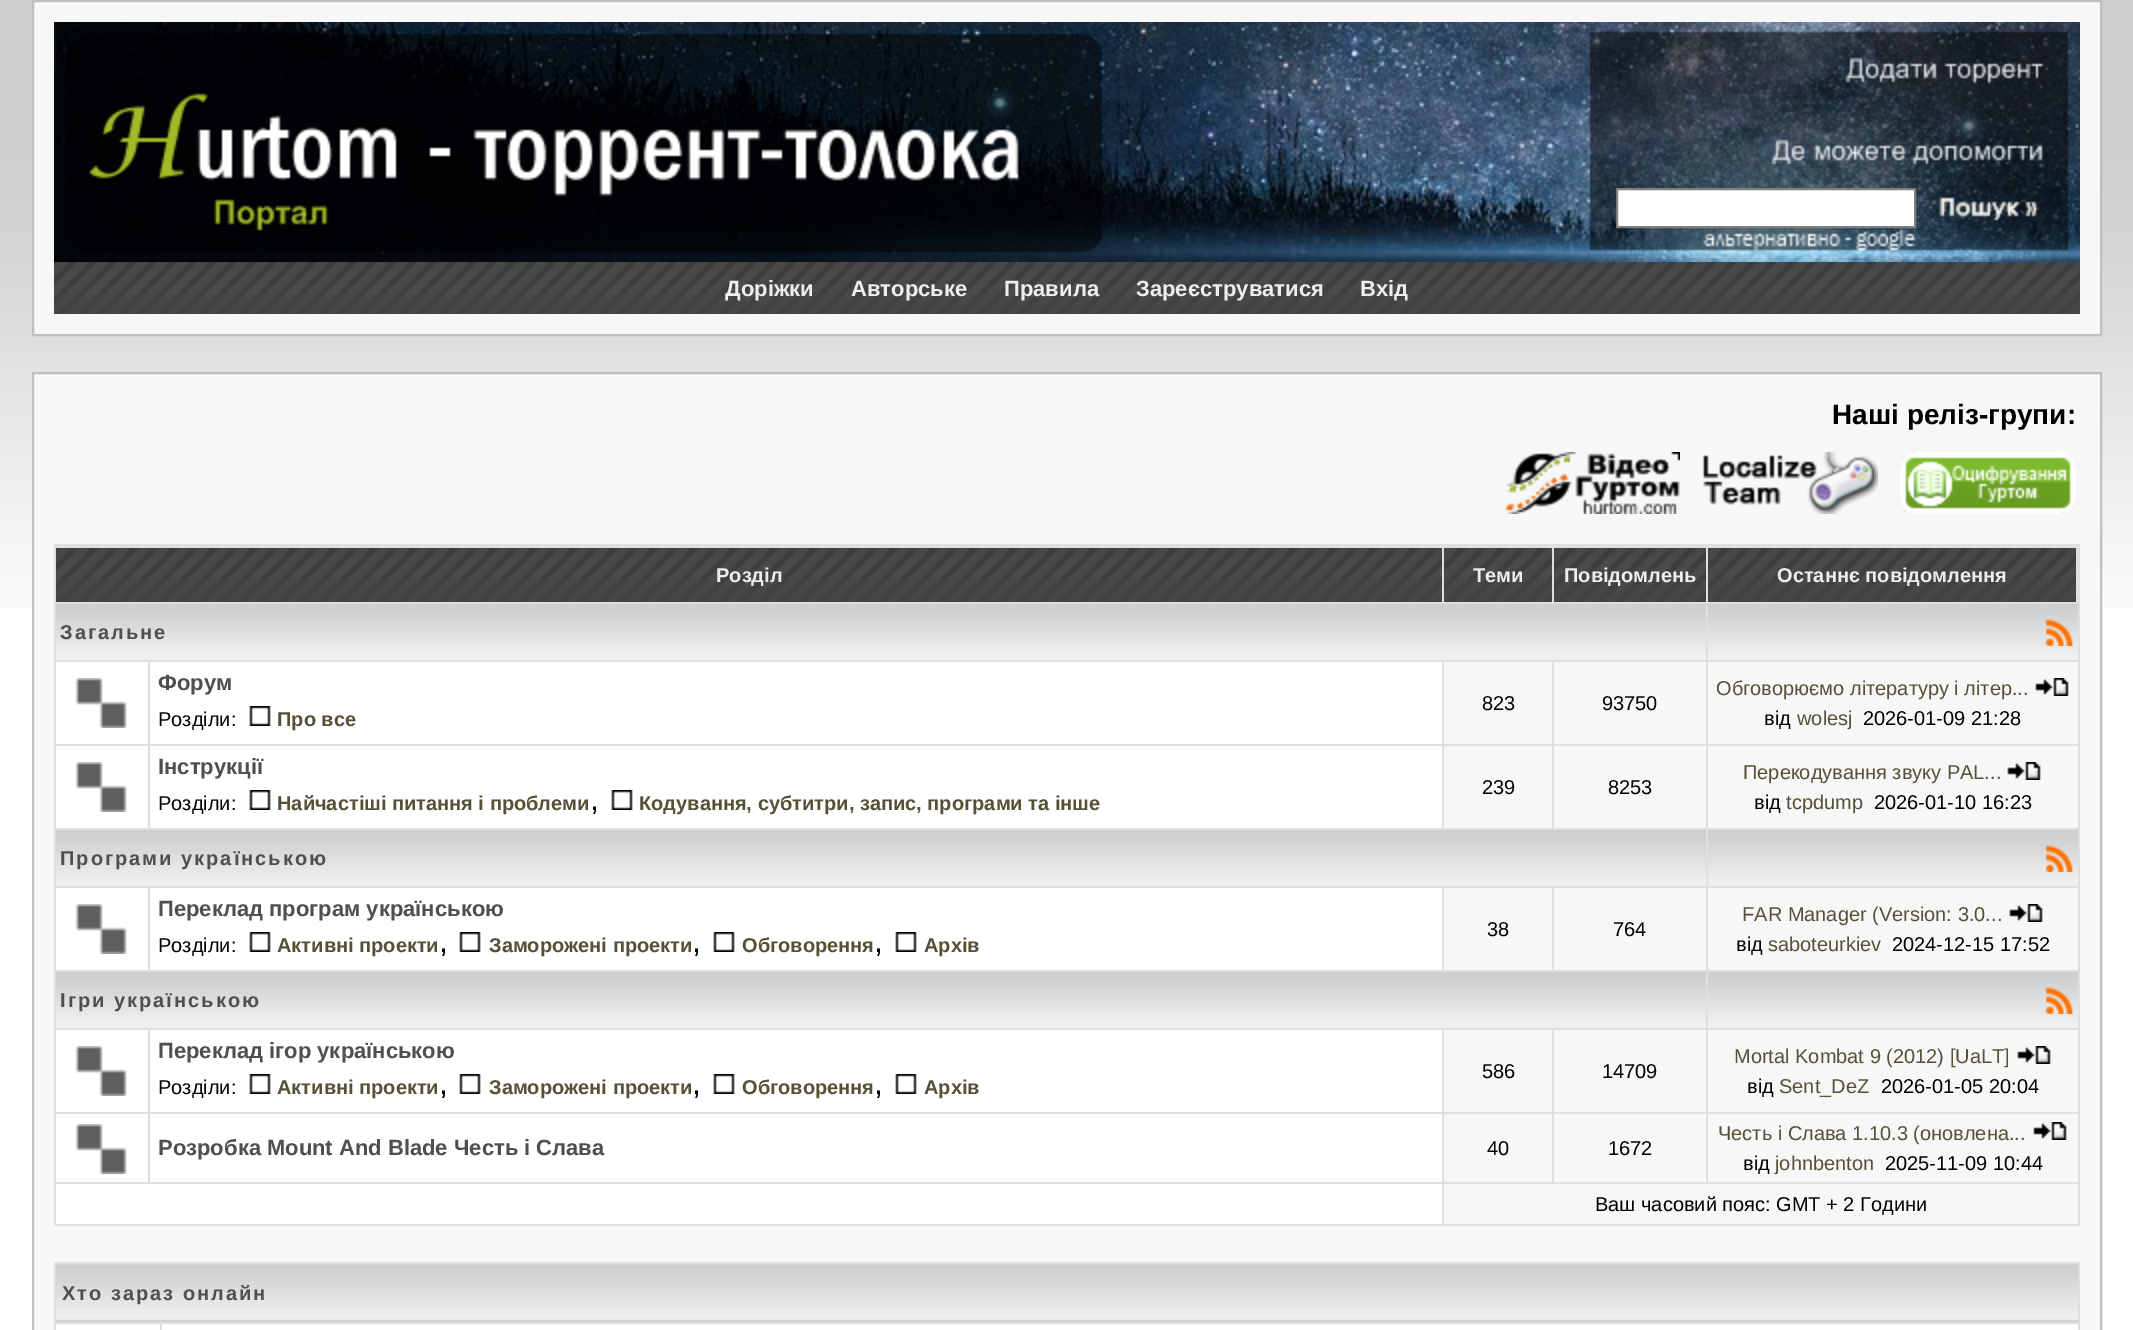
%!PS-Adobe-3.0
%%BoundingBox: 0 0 2133 1330
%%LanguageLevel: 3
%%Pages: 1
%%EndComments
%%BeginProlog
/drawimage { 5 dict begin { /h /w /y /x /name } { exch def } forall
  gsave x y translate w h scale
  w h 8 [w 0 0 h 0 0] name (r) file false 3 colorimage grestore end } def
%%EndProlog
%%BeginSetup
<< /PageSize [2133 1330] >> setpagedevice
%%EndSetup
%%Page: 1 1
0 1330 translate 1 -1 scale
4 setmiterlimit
1 setgray
0 0 2133 1330 rectfill
(images/1.raw) 0 0 2133 608 drawimage
0.969 setgray
newpath 33 1 moveto 2101 1 lineto 2101 335 lineto 33 335 lineto closepath gsave fill grestore
0.749 setgray
2 setlinewidth
stroke
(images/2.raw) 54 22 2026 240 drawimage
(images/3.raw) 66 33 1037 220 drawimage
(images/4.raw) 1589 31 480 220 drawimage
1 setgray
newpath 1617 189 moveto 1915 189 lineto 1915 227 lineto 1617 227 lineto closepath gsave fill grestore
0.498 setgray
stroke
(images/5.raw) 54 262 2026 52 drawimage
0.969 setgray
newpath 33 373 moveto 2101 373 lineto 2101 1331 lineto 33 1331 lineto closepath gsave fill grestore
0.749 setgray
stroke
(images/6.raw) 1505 452 175 62 drawimage
(images/7.raw) 1702 452 176 62 drawimage
(images/8.raw) 1900 452 176 62 drawimage
0.875 setgray
54 544 2026 682 rectfill
(images/9.raw) 56 548 1386 54 drawimage
(images/10.raw) 1444 548 108 54 drawimage
(images/11.raw) 1554 548 152 54 drawimage
(images/12.raw) 1708 548 368 54 drawimage
(images/13.raw) 56 604 1650 56 drawimage
(images/14.raw) 1708 604 370 56 drawimage
(images/15.raw) 2046 619 27 27 drawimage
1 setgray
56 662 92 82 rectfill
(images/16.raw) 75 678 52 50 drawimage
150 662 1292 82 rectfill
(images/17.raw) 249 706 22 20 drawimage
0.969 setgray
1444 662 108 82 rectfill
1554 662 152 82 rectfill
1708 662 370 82 rectfill
(images/18.raw) 2035 678 34 18 drawimage
1 setgray
56 746 92 82 rectfill
(images/16.raw) 75 762 52 50 drawimage
150 746 1292 82 rectfill
(images/17.raw) 249 790 22 20 drawimage
(images/17.raw) 611 790 22 20 drawimage
0.969 setgray
1444 746 108 82 rectfill
1554 746 152 82 rectfill
1708 746 370 82 rectfill
(images/18.raw) 2007 762 34 18 drawimage
(images/13.raw) 56 830 1650 56 drawimage
(images/14.raw) 1708 830 370 56 drawimage
(images/15.raw) 2046 845 27 27 drawimage
1 setgray
56 888 92 82 rectfill
(images/16.raw) 75 904 52 50 drawimage
150 888 1292 82 rectfill
(images/17.raw) 249 932 22 20 drawimage
(images/17.raw) 459 932 22 20 drawimage
(images/17.raw) 713 932 22 20 drawimage
(images/17.raw) 895 932 22 20 drawimage
0.969 setgray
1444 888 108 82 rectfill
1554 888 152 82 rectfill
1708 888 370 82 rectfill
(images/18.raw) 2009 904 34 18 drawimage
(images/13.raw) 56 972 1650 56 drawimage
(images/14.raw) 1708 972 370 56 drawimage
(images/15.raw) 2046 987 27 27 drawimage
1 setgray
56 1030 92 82 rectfill
(images/16.raw) 75 1046 52 50 drawimage
150 1030 1292 82 rectfill
(images/17.raw) 249 1074 22 20 drawimage
(images/17.raw) 459 1074 22 20 drawimage
(images/17.raw) 713 1074 22 20 drawimage
(images/17.raw) 895 1074 22 20 drawimage
0.969 setgray
1444 1030 108 82 rectfill
1554 1030 152 82 rectfill
1708 1030 370 82 rectfill
(images/18.raw) 2017 1046 34 18 drawimage
1 setgray
56 1114 92 68 rectfill
(images/16.raw) 75 1124 52 50 drawimage
150 1114 1292 68 rectfill
0.969 setgray
1444 1114 108 68 rectfill
1554 1114 152 68 rectfill
1708 1114 370 68 rectfill
(images/18.raw) 2033 1122 34 18 drawimage
1 setgray
56 1184 1386 40 rectfill
0.969 setgray
1444 1184 634 40 rectfill
0.875 setgray
54 1262 2026 68 rectfill
(images/19.raw) 56 1264 2022 58 drawimage
1 setgray
56 1324 104 6 rectfill
162 1324 1916 6 rectfill
/LiberationSans-Bold [22 0 0 -22 0 0] selectfont
0.933 setgray
725 296 moveto (Доріжки) show
851 296 moveto (Авторське) show
1004 296 moveto (Правила) show
1136 296 moveto (Зареєструватися) show
1360 296 moveto (Вхід) show
/LiberationSans-Bold [28 0 0 -28 0 0] selectfont
0 setgray
1832 424 moveto (Наші реліз-групи:) show
/LiberationSans-Bold [20 0 0 -20 0 0] selectfont
0.933 setgray
716 582 moveto (Розділ) show
1473 582 moveto (Теми) show
1564 582 moveto (Повідомлень) show
1777 582 moveto (Останнє повідомлення) show
0.31 setgray
60 639 moveto 2 0 (Загальне) ashow
/LiberationSans-Bold [22 0 0 -22 0 0] selectfont
158 690 moveto (Форум) show
/LiberationSans-Regular [20 0 0 -20 0 0] selectfont
0 setgray
158 726 moveto (Розділи:) show
/LiberationSans-Bold [20 0 0 -20 0 0] selectfont
0.337 0.314 0.216 setrgbcolor
277 726 moveto (Про все) show
/LiberationSans-Regular [20 0 0 -20 0 0] selectfont
0 setgray
1482 710 moveto (823) show
1602 710 moveto (93750) show
0.337 0.314 0.216 setrgbcolor
1716 695 moveto (Обговорюємо літературу і літер...) show
0 setgray
1764 725 moveto (від) show
0.337 0.314 0.216 setrgbcolor
1797 725 moveto (wolesj) show
0 setgray
1863 725 moveto (2026-01-09 21:28) show
/LiberationSans-Bold [22 0 0 -22 0 0] selectfont
0.31 setgray
158 774 moveto (Інструкції) show
/LiberationSans-Regular [20 0 0 -20 0 0] selectfont
0 setgray
158 810 moveto (Розділи:) show
/LiberationSans-Bold [20 0 0 -20 0 0] selectfont
0.337 0.314 0.216 setrgbcolor
277 810 moveto (Найчастіші питання і проблеми) show
/LiberationSans-Regular [32 0 0 -32 0 0] selectfont
0 setgray
590 810 moveto (,) show
/LiberationSans-Bold [20 0 0 -20 0 0] selectfont
0.337 0.314 0.216 setrgbcolor
639 810 moveto (Кодування, субтитри, запис, програми та інше) show
/LiberationSans-Regular [20 0 0 -20 0 0] selectfont
0 setgray
1482 794 moveto (239) show
1608 794 moveto (8253) show
0.337 0.314 0.216 setrgbcolor
1743 779 moveto (Перекодування звуку PAL...) show
0 setgray
1754 809 moveto (від) show
0.337 0.314 0.216 setrgbcolor
1786 809 moveto (tcpdump) show
0 setgray
1874 809 moveto (2026-01-10 16:23) show
/LiberationSans-Bold [20 0 0 -20 0 0] selectfont
0.31 setgray
60 865 moveto 2 0 (Програми українською) ashow
/LiberationSans-Bold [22 0 0 -22 0 0] selectfont
158 916 moveto (Переклад програм українською) show
/LiberationSans-Regular [20 0 0 -20 0 0] selectfont
0 setgray
158 952 moveto (Розділи:) show
/LiberationSans-Bold [20 0 0 -20 0 0] selectfont
0.337 0.314 0.216 setrgbcolor
277 952 moveto (Активні проекти) show
/LiberationSans-Regular [32 0 0 -32 0 0] selectfont
0 setgray
439 952 moveto (,) show
/LiberationSans-Bold [20 0 0 -20 0 0] selectfont
0.337 0.314 0.216 setrgbcolor
489 952 moveto (Заморожені проекти) show
/LiberationSans-Regular [32 0 0 -32 0 0] selectfont
0 setgray
692 952 moveto (,) show
/LiberationSans-Bold [20 0 0 -20 0 0] selectfont
0.337 0.314 0.216 setrgbcolor
742 952 moveto (Обговорення) show
/LiberationSans-Regular [32 0 0 -32 0 0] selectfont
0 setgray
874 952 moveto (,) show
/LiberationSans-Bold [20 0 0 -20 0 0] selectfont
0.337 0.314 0.216 setrgbcolor
924 952 moveto (Архів) show
/LiberationSans-Regular [20 0 0 -20 0 0] selectfont
0 setgray
1487 936 moveto (38) show
1613 936 moveto (764) show
0.337 0.314 0.216 setrgbcolor
1742 921 moveto (FAR Manager \(Version: 3.0...) show
0 setgray
1736 951 moveto (від) show
0.337 0.314 0.216 setrgbcolor
1768 951 moveto (saboteurkiev) show
0 setgray
1892 951 moveto (2024-12-15 17:52) show
/LiberationSans-Bold [20 0 0 -20 0 0] selectfont
0.31 setgray
60 1007 moveto 2 0 (Ігри українською) ashow
/LiberationSans-Bold [22 0 0 -22 0 0] selectfont
158 1058 moveto (Переклад ігор українською) show
/LiberationSans-Regular [20 0 0 -20 0 0] selectfont
0 setgray
158 1094 moveto (Розділи:) show
/LiberationSans-Bold [20 0 0 -20 0 0] selectfont
0.337 0.314 0.216 setrgbcolor
277 1094 moveto (Активні проекти) show
/LiberationSans-Regular [32 0 0 -32 0 0] selectfont
0 setgray
439 1094 moveto (,) show
/LiberationSans-Bold [20 0 0 -20 0 0] selectfont
0.337 0.314 0.216 setrgbcolor
489 1094 moveto (Заморожені проекти) show
/LiberationSans-Regular [32 0 0 -32 0 0] selectfont
0 setgray
692 1094 moveto (,) show
/LiberationSans-Bold [20 0 0 -20 0 0] selectfont
0.337 0.314 0.216 setrgbcolor
742 1094 moveto (Обговорення) show
/LiberationSans-Regular [32 0 0 -32 0 0] selectfont
0 setgray
874 1094 moveto (,) show
/LiberationSans-Bold [20 0 0 -20 0 0] selectfont
0.337 0.314 0.216 setrgbcolor
924 1094 moveto (Архів) show
/LiberationSans-Regular [20 0 0 -20 0 0] selectfont
0 setgray
1482 1078 moveto (586) show
1602 1078 moveto (14709) show
0.337 0.314 0.216 setrgbcolor
1734 1063 moveto (Mortal Kombat 9 \(2012\) [UaLT]) show
0 setgray
1747 1093 moveto (від) show
0.337 0.314 0.216 setrgbcolor
1779 1093 moveto (Sent_DeZ) show
0 setgray
1881 1093 moveto (2026-01-05 20:04) show
/LiberationSans-Bold [22 0 0 -22 0 0] selectfont
0.31 setgray
158 1155 moveto (Розробка Mount And Blade Честь і Слава) show
/LiberationSans-Regular [20 0 0 -20 0 0] selectfont
0 setgray
1487 1155 moveto (40) show
1608 1155 moveto (1672) show
0.337 0.314 0.216 setrgbcolor
1718 1140 moveto (Честь і Слава 1.10.3 \(оновлена...) show
0 setgray
1743 1170 moveto (від) show
0.337 0.314 0.216 setrgbcolor
1775 1170 moveto (johnbenton) show
0 setgray
1885 1170 moveto (2025-11-09 10:44) show
1595 1211 moveto (Ваш часовий пояс: GMT + 2 Години) show
/LiberationSans-Bold [20 0 0 -20 0 0] selectfont
0.31 setgray
62 1300 moveto 2 0 (Хто зараз онлайн) ashow
showpage
%%EOF
